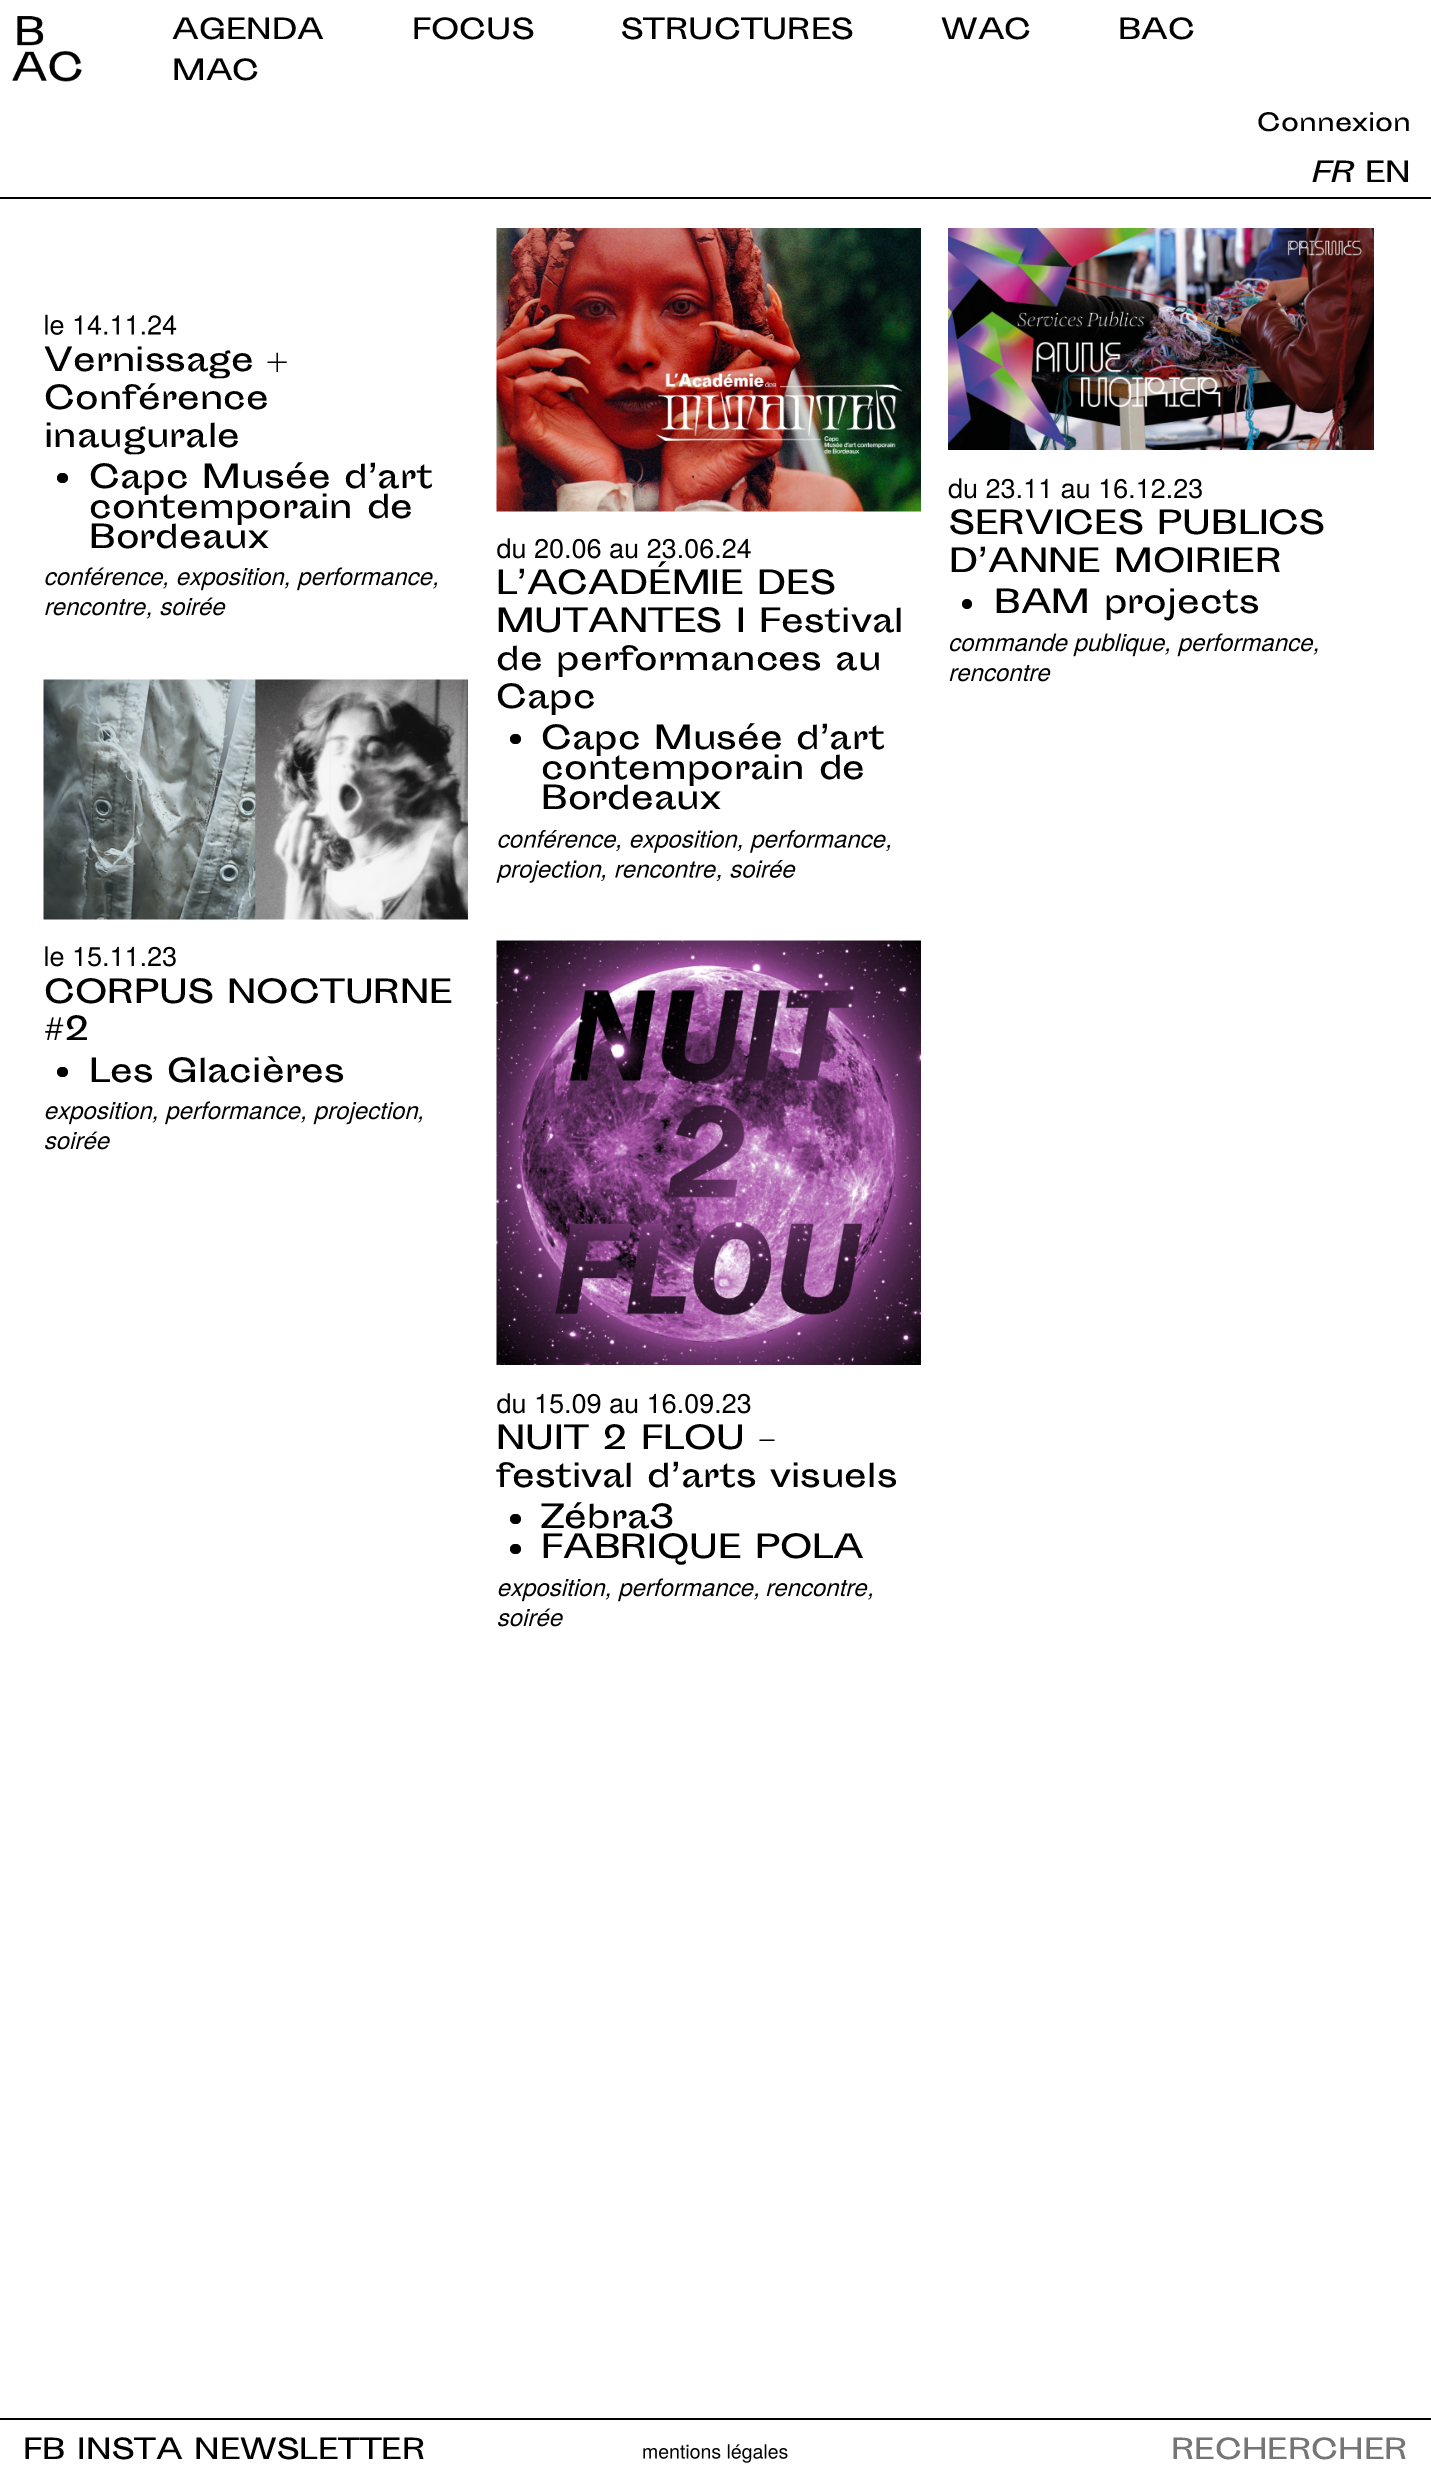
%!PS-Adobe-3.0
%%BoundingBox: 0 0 1431 2485
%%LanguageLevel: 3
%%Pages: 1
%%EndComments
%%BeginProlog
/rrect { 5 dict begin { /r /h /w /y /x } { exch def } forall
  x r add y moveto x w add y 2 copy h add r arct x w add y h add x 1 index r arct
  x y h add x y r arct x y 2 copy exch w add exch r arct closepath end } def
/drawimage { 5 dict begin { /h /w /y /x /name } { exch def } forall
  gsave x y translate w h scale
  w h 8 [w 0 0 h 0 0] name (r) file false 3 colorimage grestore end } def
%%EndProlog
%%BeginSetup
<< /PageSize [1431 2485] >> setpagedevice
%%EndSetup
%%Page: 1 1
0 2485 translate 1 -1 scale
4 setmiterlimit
1 setgray
0 0 1431 2485 rectfill
0 setgray
0 197 1431 2 rectfill
(images/1.raw) 12 16 70 66 drawimage
(images/2.raw) 45 314 132 21 drawimage
57 473 11 10 5 rrect fill
(images/3.raw) 45 567 119 19 drawimage
(images/4.raw) 163 582 5 7 drawimage
(images/5.raw) 177 568 108 23 drawimage
(images/6.raw) 284 582 5 7 drawimage
(images/7.raw) 297 567 136 24 drawimage
(images/4.raw) 433 582 5 7 drawimage
(images/8.raw) 45 599 101 17 drawimage
(images/6.raw) 146 612 5 7 drawimage
(images/9.raw) 160 597 66 19 drawimage
(images/10.raw) 496 228 425 284 drawimage
(images/11.raw) 497 538 254 21 drawimage
510 734 11 10 5 rrect fill
(images/12.raw) 498 829 119 19 drawimage
(images/13.raw) 616 845 5 6 drawimage
(images/14.raw) 630 830 108 23 drawimage
(images/15.raw) 737 845 5 6 drawimage
(images/16.raw) 750 829 136 24 drawimage
(images/13.raw) 886 845 5 6 drawimage
(images/17.raw) 496 860 106 23 drawimage
(images/13.raw) 601 875 5 6 drawimage
(images/18.raw) 615 861 101 17 drawimage
(images/15.raw) 716 875 5 6 drawimage
(images/19.raw) 730 860 66 18 drawimage
(images/20.raw) 948 228 426 222 drawimage
(images/21.raw) 948 478 254 21 drawimage
newpath 967 604 5 0 360 arc closepath fill
(images/22.raw) 950 633 215 24 drawimage
(images/4.raw) 1165 648 5 7 drawimage
(images/23.raw) 1177 633 137 24 drawimage
(images/6.raw) 1313 648 5 7 drawimage
(images/24.raw) 949 665 102 17 drawimage
(images/25.raw) 43 679 425 241 drawimage
(images/26.raw) 45 946 131 21 drawimage
57 1067 11 10 5 rrect fill
(images/5.raw) 45 1102 108 23 drawimage
(images/6.raw) 152 1116 5 7 drawimage
(images/7.raw) 165 1101 136 24 drawimage
(images/4.raw) 301 1116 5 7 drawimage
(images/27.raw) 313 1102 106 23 drawimage
(images/4.raw) 418 1116 5 7 drawimage
(images/28.raw) 45 1131 65 19 drawimage
(images/29.raw) 496 940 425 425 drawimage
(images/30.raw) 497 1393 254 21 drawimage
510 1514 11 10 5 rrect fill
510 1544 11 10 5 rrect fill
(images/5.raw) 498 1579 108 23 drawimage
(images/6.raw) 605 1593 5 7 drawimage
(images/7.raw) 618 1578 136 24 drawimage
(images/4.raw) 754 1593 5 7 drawimage
(images/24.raw) 766 1580 102 17 drawimage
(images/4.raw) 868 1593 5 7 drawimage
(images/28.raw) 498 1608 65 19 drawimage
0 2418 1431 2 rectfill
(images/31.raw) 643 2444 145 19 drawimage
/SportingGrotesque-Medium [27.5 0 0 -27.5 0 0] selectfont
172 39 moveto (AGENDA) show
412 39 moveto (FOCUS) show
621 39 moveto (STRUCTURES) show
941 39 moveto (WAC) show
1118 39 moveto (BAC) show
172 80 moveto (MAC) show
/SportingGrotesque-Medium [24 0 0 -24 0 0] selectfont
1257 131 moveto (Connexion) show
/SportingGrotesque-MediumItalic [27.5 0 0 -27.5 0 0] selectfont
1310 182 moveto (FR) show
/SportingGrotesque-Medium [27.5 0 0 -27.5 0 0] selectfont
1365 182 moveto (EN) show
/SportingGrotesque-Medium [31.5 0 0 -31.5 0 0] selectfont
44 371 moveto (Vernissage +) show
44 409 moveto (Conférence) show
44 447 moveto (inaugurale) show
89 488 moveto (Capc Musée d’art) show
89 518 moveto (contemporain de) show
89 548 moveto (Bordeaux) show
496 594 moveto (L’ACADÉMIE DES) show
496 632 moveto (MUTANTES I Festival) show
496 670 moveto (de performances au) show
496 708 moveto (Capc) show
541 749 moveto (Capc Musée d’art) show
541 779 moveto (contemporain de) show
541 809 moveto (Bordeaux) show
949 534 moveto (SERVICES PUBLICS) show
949 572 moveto (D’ANNE MOIRIER) show
994 613 moveto (BAM projects) show
44 1003 moveto (CORPUS NOCTURNE) show
44 1040 moveto (#2) show
89 1082 moveto (Les Glacières) show
496 1449 moveto (NUIT 2 FLOU –) show
496 1487 moveto (festival d’arts visuels) show
541 1528 moveto (Zébra3) show
541 1558 moveto (FABRIQUE POLA) show
/SportingGrotesque-Medium [27.5 0 0 -27.5 0 0] selectfont
23 2459 moveto (FB INSTA NEWSLETTER) show
0.459 setgray
1171 2459 moveto (RECHERCHER) show
showpage
%%EOF
